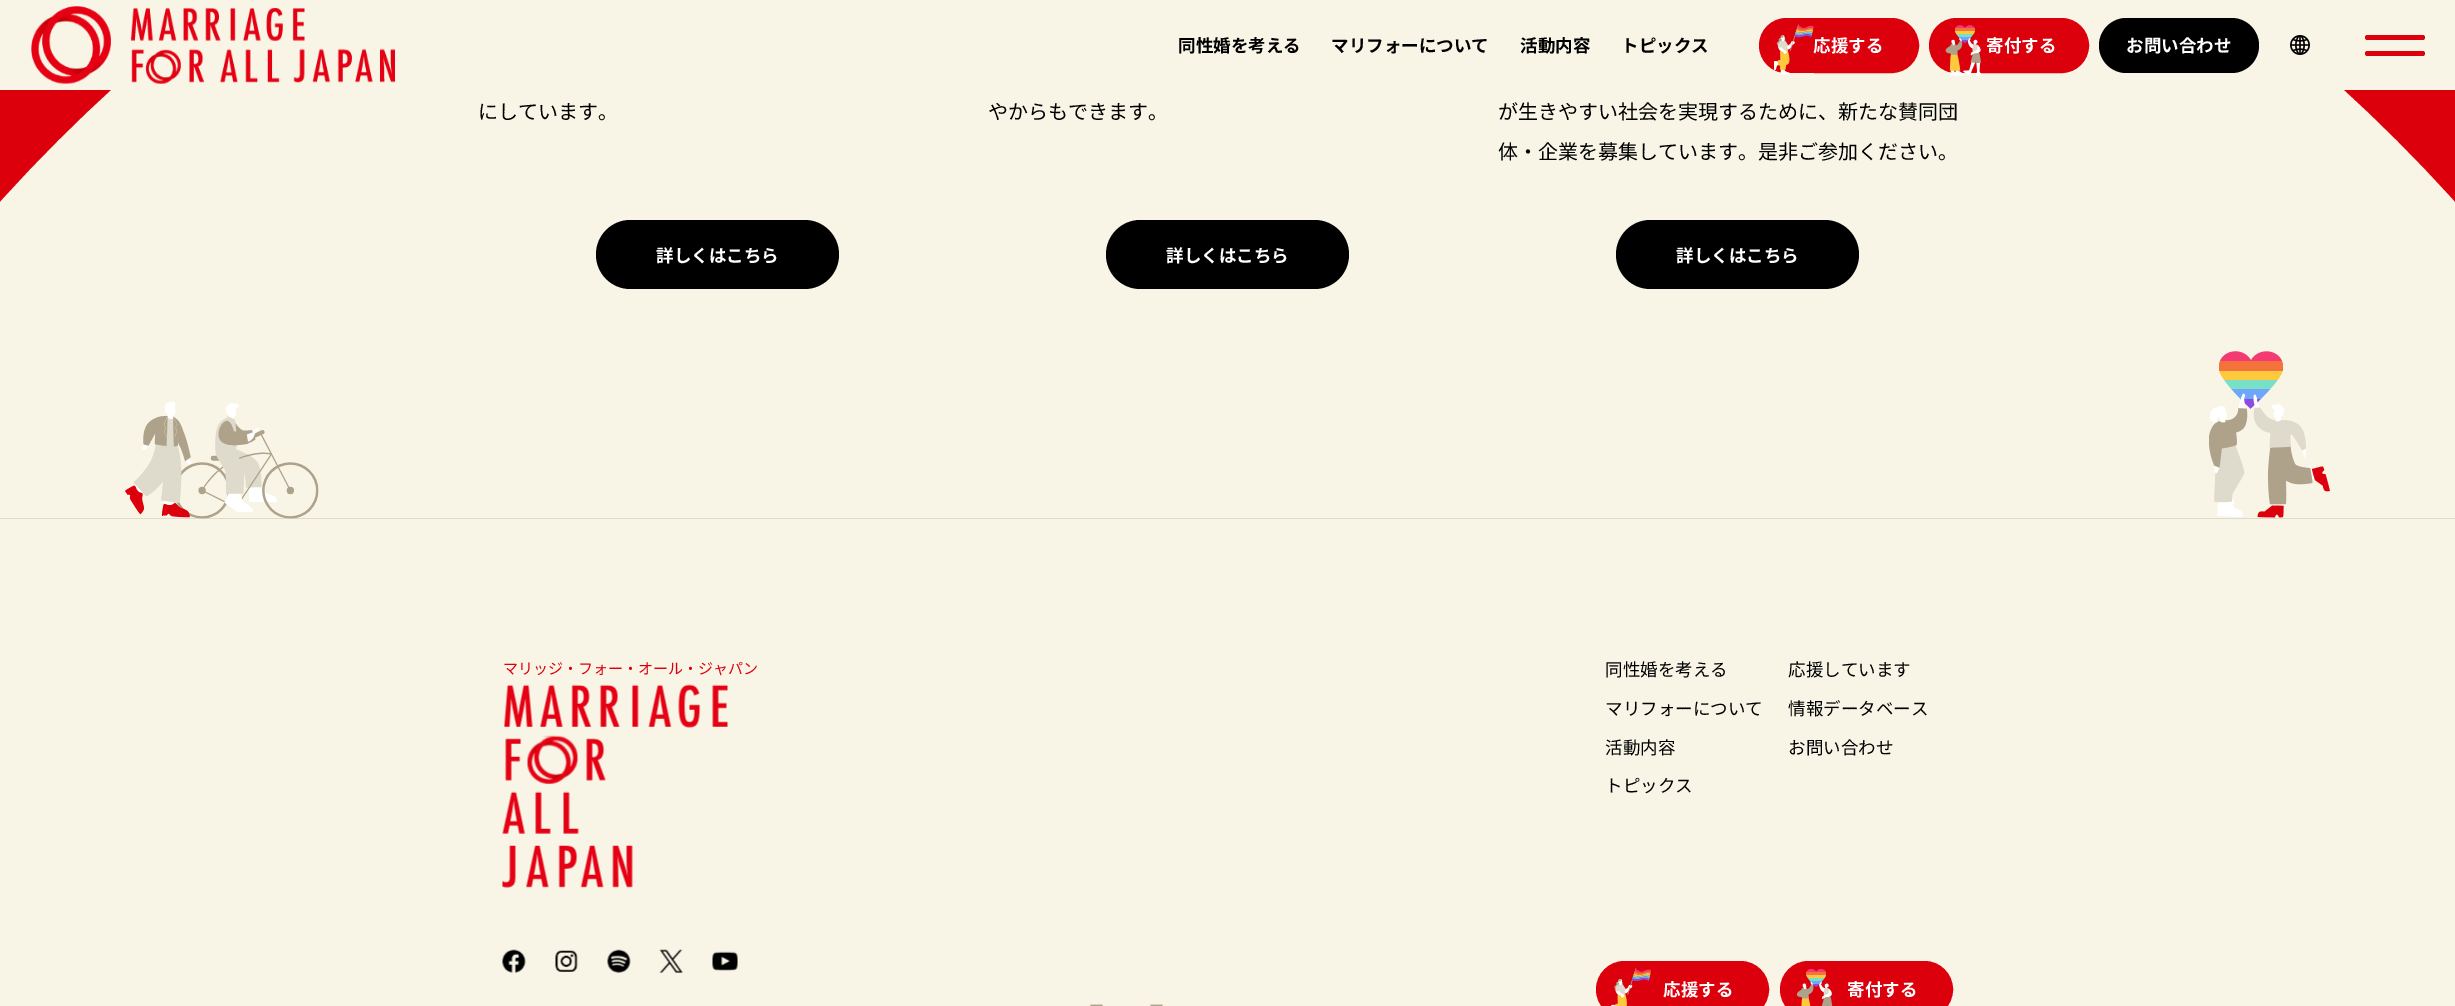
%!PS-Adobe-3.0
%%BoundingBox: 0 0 2455 1006
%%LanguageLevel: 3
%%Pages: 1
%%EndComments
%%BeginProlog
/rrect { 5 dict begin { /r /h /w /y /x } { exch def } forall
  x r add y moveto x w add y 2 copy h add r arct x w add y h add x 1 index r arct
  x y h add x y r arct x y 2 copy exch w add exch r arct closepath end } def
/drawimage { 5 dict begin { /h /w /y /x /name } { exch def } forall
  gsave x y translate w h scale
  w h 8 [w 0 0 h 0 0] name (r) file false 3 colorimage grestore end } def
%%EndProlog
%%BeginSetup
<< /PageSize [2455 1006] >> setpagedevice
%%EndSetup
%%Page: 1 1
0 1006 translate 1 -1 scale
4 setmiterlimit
0.973 0.961 0.906 setrgbcolor
0 0 2455 1006 rectfill
0.863 0 0.047 setrgbcolor
143.8 setlinewidth
newpath 1227.5 1309.5 1725.5 0 360 arc closepath stroke
0.973 0.961 0.906 setrgbcolor
0 0 2455 90 rectfill
(images/1.raw) 31 6 364 78 drawimage
0.863 0 0.047 setrgbcolor
1761 20 156 51 25.5 rrect gsave fill grestore
4 setlinewidth
stroke
1931 20 156 51 25.5 rrect gsave fill grestore
stroke
(images/3.raw) 1945 25 36 51 drawimage
0 setgray
2099 18 160 55 27.5 rrect fill
(images/4.raw) 2290 35 20 20 drawimage
0.863 0 0.047 setrgbcolor
2365 35 60 5 2.5 rrect fill
2365 51 60 5 2.5 rrect fill
0 setgray
596 220 243 69 34.5 rrect fill
1106 220 243 69 34.5 rrect fill
1616 220 243 69 34.5 rrect fill
0.871 0.859 0.8 setrgbcolor
0 518 2455 1 rectfill
(images/5.raw) 125 401 194 118 drawimage
(images/6.raw) 2209 351 121 167 drawimage
(images/7.raw) 502 684 226 204 drawimage
(images/8.raw) 502 949 24 24 drawimage
(images/9.raw) 555 950 23 22 drawimage
(images/10.raw) 607 949 24 24 drawimage
(images/11.raw) 659 949 24 24 drawimage
(images/12.raw) 712 951 26 20 drawimage
0.863 0 0.047 setrgbcolor
1598 963 169 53 26.5 rrect gsave fill grestore
stroke
(images/13.raw) 1611 968 40 38 drawimage
1782 963 169 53 26.5 rrect gsave fill grestore
stroke
(images/14.raw) 1796 969 37 37 drawimage
/NotoSansJP-Bold [17.5 0 0 -17.5 0 0] selectfont
0 setgray
1178 52 moveto (同性婚を考える) show
1331 52 moveto (マリフォーについて) show
1520 52 moveto (活動内容) show
1621 52 moveto (トピックス) show
1 setgray
1813 52 moveto (応援する) show
(images/2.raw) 1774 24 40 51 drawimage
1986 52 moveto (寄付する) show
2126 52 moveto (お問い合わせ) show
/NotoSansJP-Regular [20 0 0 -20 0 0] selectfont
0 setgray
478 119 moveto (にしています。) show
/NotoSansJP-Bold [17.5 0 0 -17.5 0 0] selectfont
1 setgray
656 262 moveto (詳しくはこちら) show
/NotoSansJP-Regular [20 0 0 -20 0 0] selectfont
0 setgray
988 119 moveto (やからもできます。) show
/NotoSansJP-Bold [17.5 0 0 -17.5 0 0] selectfont
1 setgray
1166 262 moveto (詳しくはこちら) show
/NotoSansJP-Regular [20 0 0 -20 0 0] selectfont
0 setgray
1498 119 moveto (が生きやすい社会を実現するために、新たな賛同団) show
1498 159 moveto (体・企業を募集しています。是非ご参加ください。) show
/NotoSansJP-Bold [17.5 0 0 -17.5 0 0] selectfont
1 setgray
1676 262 moveto (詳しくはこちら) show
/NotoSansJP-Regular [15 0 0 -15 0 0] selectfont
0.863 0 0.047 setrgbcolor
503 674 moveto (マリッジ・フォー・オール・ジャパン) show
/NotoSansJP-Regular [17.5 0 0 -17.5 0 0] selectfont
0 setgray
1605 676 moveto (同性婚を考える) show
1605 715 moveto (マリフォーについて) show
1605 754 moveto (活動内容) show
1605 792 moveto (トピックス) show
1788 676 moveto (応援しています) show
1788 715 moveto (情報データベース) show
1788 754 moveto (お問い合わせ) show
/NotoSansJP-Bold [17.5 0 0 -17.5 0 0] selectfont
1 setgray
1663 996 moveto (応援する) show
1847 996 moveto (寄付する) show
/NotoSansJP-Regular [15 0 0 -15 0 0] selectfont
0.686 0.635 0.545 setrgbcolor
1089 1011 moveto (ー) show
1149 1011 moveto (ー) show
showpage
%%EOF
